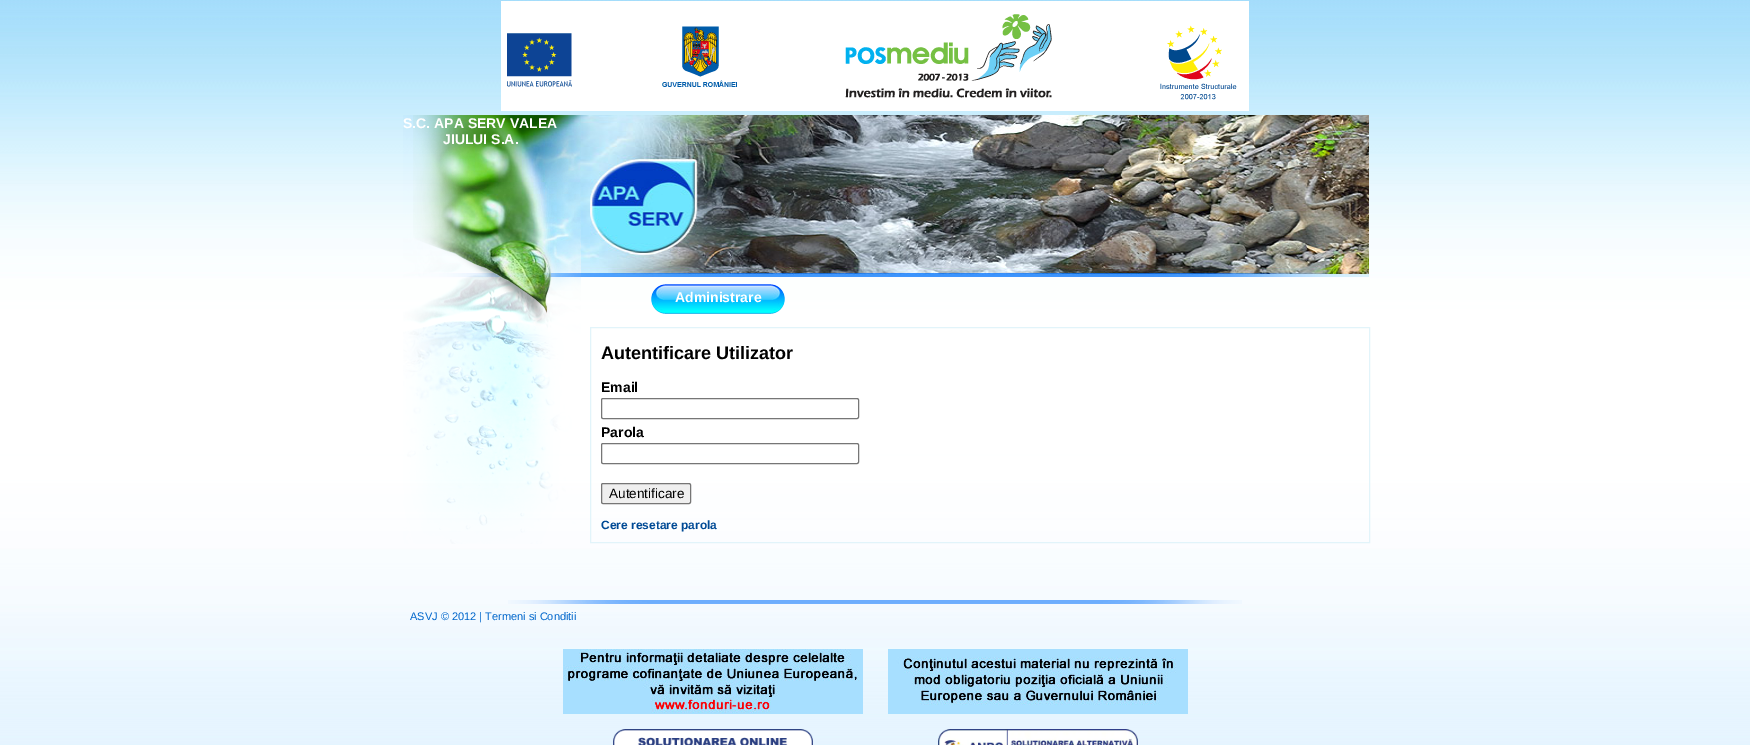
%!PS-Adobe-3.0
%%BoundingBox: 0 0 1750 745
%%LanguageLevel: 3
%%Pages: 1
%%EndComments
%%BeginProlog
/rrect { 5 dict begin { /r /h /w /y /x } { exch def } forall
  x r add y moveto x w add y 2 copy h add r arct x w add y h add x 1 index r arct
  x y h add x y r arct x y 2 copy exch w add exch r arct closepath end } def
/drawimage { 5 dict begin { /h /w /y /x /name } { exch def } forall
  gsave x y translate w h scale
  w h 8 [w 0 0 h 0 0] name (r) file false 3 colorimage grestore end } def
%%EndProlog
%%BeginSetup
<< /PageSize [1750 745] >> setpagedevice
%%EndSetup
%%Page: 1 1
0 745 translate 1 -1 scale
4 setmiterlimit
1 setgray
0 0 1750 745 rectfill
(images/1.raw) 0 0 1750 745 drawimage
(images/2.raw) 501 1 748 110 drawimage
(images/3.raw) 403 115 178 429 drawimage
(images/4.raw) 581 115 788 162 drawimage
(images/5.raw) 651 284 14 30 drawimage
(images/6.raw) 665 284 106 30 drawimage
(images/7.raw) 771 284 14 30 drawimage
0.886 0.957 0.98 setrgbcolor
590.5 327.5 779 215 rectstroke
0.463 setgray
601.5 398.5 257 20 1.5 rrect stroke
601.5 443.5 257 20 1.5 rrect stroke
0.937 setgray
601.5 483.5 89 20 1.5 rrect gsave fill grestore
0.463 setgray
stroke
(images/8.raw) 508 600 734 4 drawimage
(images/9.raw) 563 649 300 65 drawimage
(images/10.raw) 613 729 200 16 drawimage
(images/11.raw) 888 649 300 65 drawimage
(images/12.raw) 938 729 200 16 drawimage
/LiberationSans-Bold [14 0 0 -14 0 0] selectfont
1 setgray
403 128 moveto (S.C. APA SERV VALEA) show
443 144 moveto (JIULUI S.A.) show
675 302 moveto (Administrare) show
/LiberationSans-Bold [18 0 0 -18 0 0] selectfont
0 setgray
601 359 moveto (Autentificare Utilizator) show
/LiberationSans-Bold [14 0 0 -14 0 0] selectfont
601 392 moveto (Email) show
601 437 moveto (Parola) show
/LiberationSans-Regular [13.5 0 0 -13.5 0 0] selectfont
609 498 moveto (Autentificare) show
/LiberationSans-Bold [12 0 0 -12 0 0] selectfont
0 0.29 0.584 setrgbcolor
601 529 moveto (Cere resetare parola) show
/LiberationSans-Regular [11 0 0 -11 0 0] selectfont
0 0.4 0.8 setrgbcolor
410 620 moveto (ASVJ © 2012 | Termeni si Conditii) show
showpage
%%EOF
